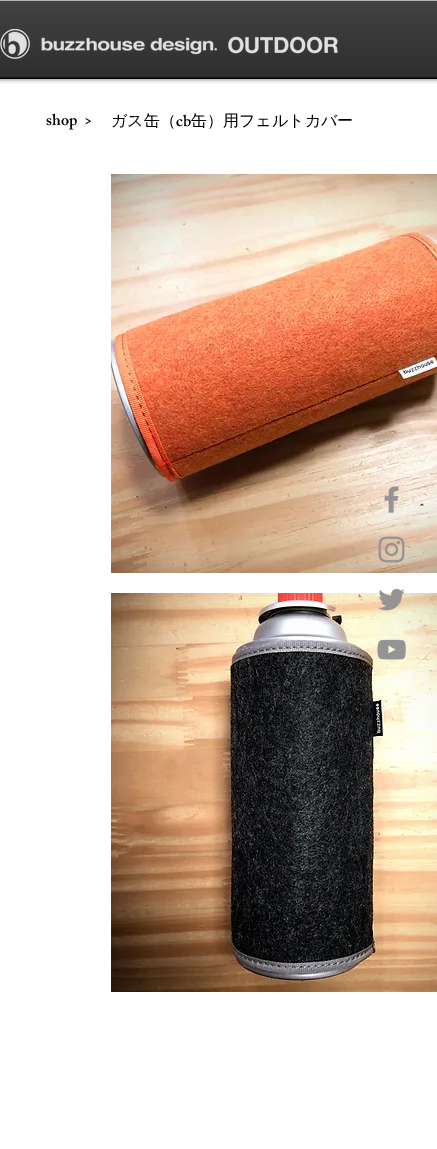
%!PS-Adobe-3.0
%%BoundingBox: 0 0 437 1149
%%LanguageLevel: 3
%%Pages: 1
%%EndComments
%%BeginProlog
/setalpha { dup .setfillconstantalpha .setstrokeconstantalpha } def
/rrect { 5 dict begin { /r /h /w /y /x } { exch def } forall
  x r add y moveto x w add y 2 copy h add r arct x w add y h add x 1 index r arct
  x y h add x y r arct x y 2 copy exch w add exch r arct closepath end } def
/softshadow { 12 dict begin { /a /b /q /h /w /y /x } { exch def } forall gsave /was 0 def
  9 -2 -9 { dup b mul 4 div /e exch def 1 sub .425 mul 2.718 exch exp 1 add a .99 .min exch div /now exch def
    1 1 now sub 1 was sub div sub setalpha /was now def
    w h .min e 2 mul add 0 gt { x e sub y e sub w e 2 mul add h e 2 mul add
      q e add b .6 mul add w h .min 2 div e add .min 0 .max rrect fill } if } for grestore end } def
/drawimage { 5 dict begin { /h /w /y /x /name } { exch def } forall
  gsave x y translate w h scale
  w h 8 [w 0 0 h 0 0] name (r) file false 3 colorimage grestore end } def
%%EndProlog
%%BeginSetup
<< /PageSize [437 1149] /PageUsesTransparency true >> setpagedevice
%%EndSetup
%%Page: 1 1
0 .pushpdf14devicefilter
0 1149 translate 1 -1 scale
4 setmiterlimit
0 setgray
0 0 437 1149 rectfill
1 setgray
0 79 437 1070 rectfill
gsave
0 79 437 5 rectclip
0 setgray
0 0 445 79 0 2.5 0.6 softshadow
grestore
(images/1.raw) 0 1 437 76 drawimage
0.071 setgray
0 77 437 1 rectfill
0.702 setgray
0 0 437 1 rectfill
(images/2.raw) 0 29 338 31 drawimage
(images/3.raw) 111 174 326 399 drawimage
(images/4.raw) 111 593 326 399 drawimage
(images/5.raw) 384 486 15 27 drawimage
(images/6.raw) 378 536 27 27 drawimage
(images/7.raw) 378 588 27 23 drawimage
(images/8.raw) 377 639 29 21 drawimage
/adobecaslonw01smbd-SemiBold [16 0 0 -16 0 0] selectfont
0 setgray
46 125 moveto (shop  >) show
/WenQuanYiZenHei-Medium [16 0 0 -16 0 0] selectfont
111 126 moveto (ガス缶（) show
/adobecaslonw01smbd-SemiBold [16 0 0 -16 0 0] selectfont
176 126 moveto (cb) show
/WenQuanYiZenHei-Medium [16 0 0 -16 0 0] selectfont
191 126 moveto (缶）用フェルトカバー) show
.poppdf14devicefilter showpage
%%EOF
